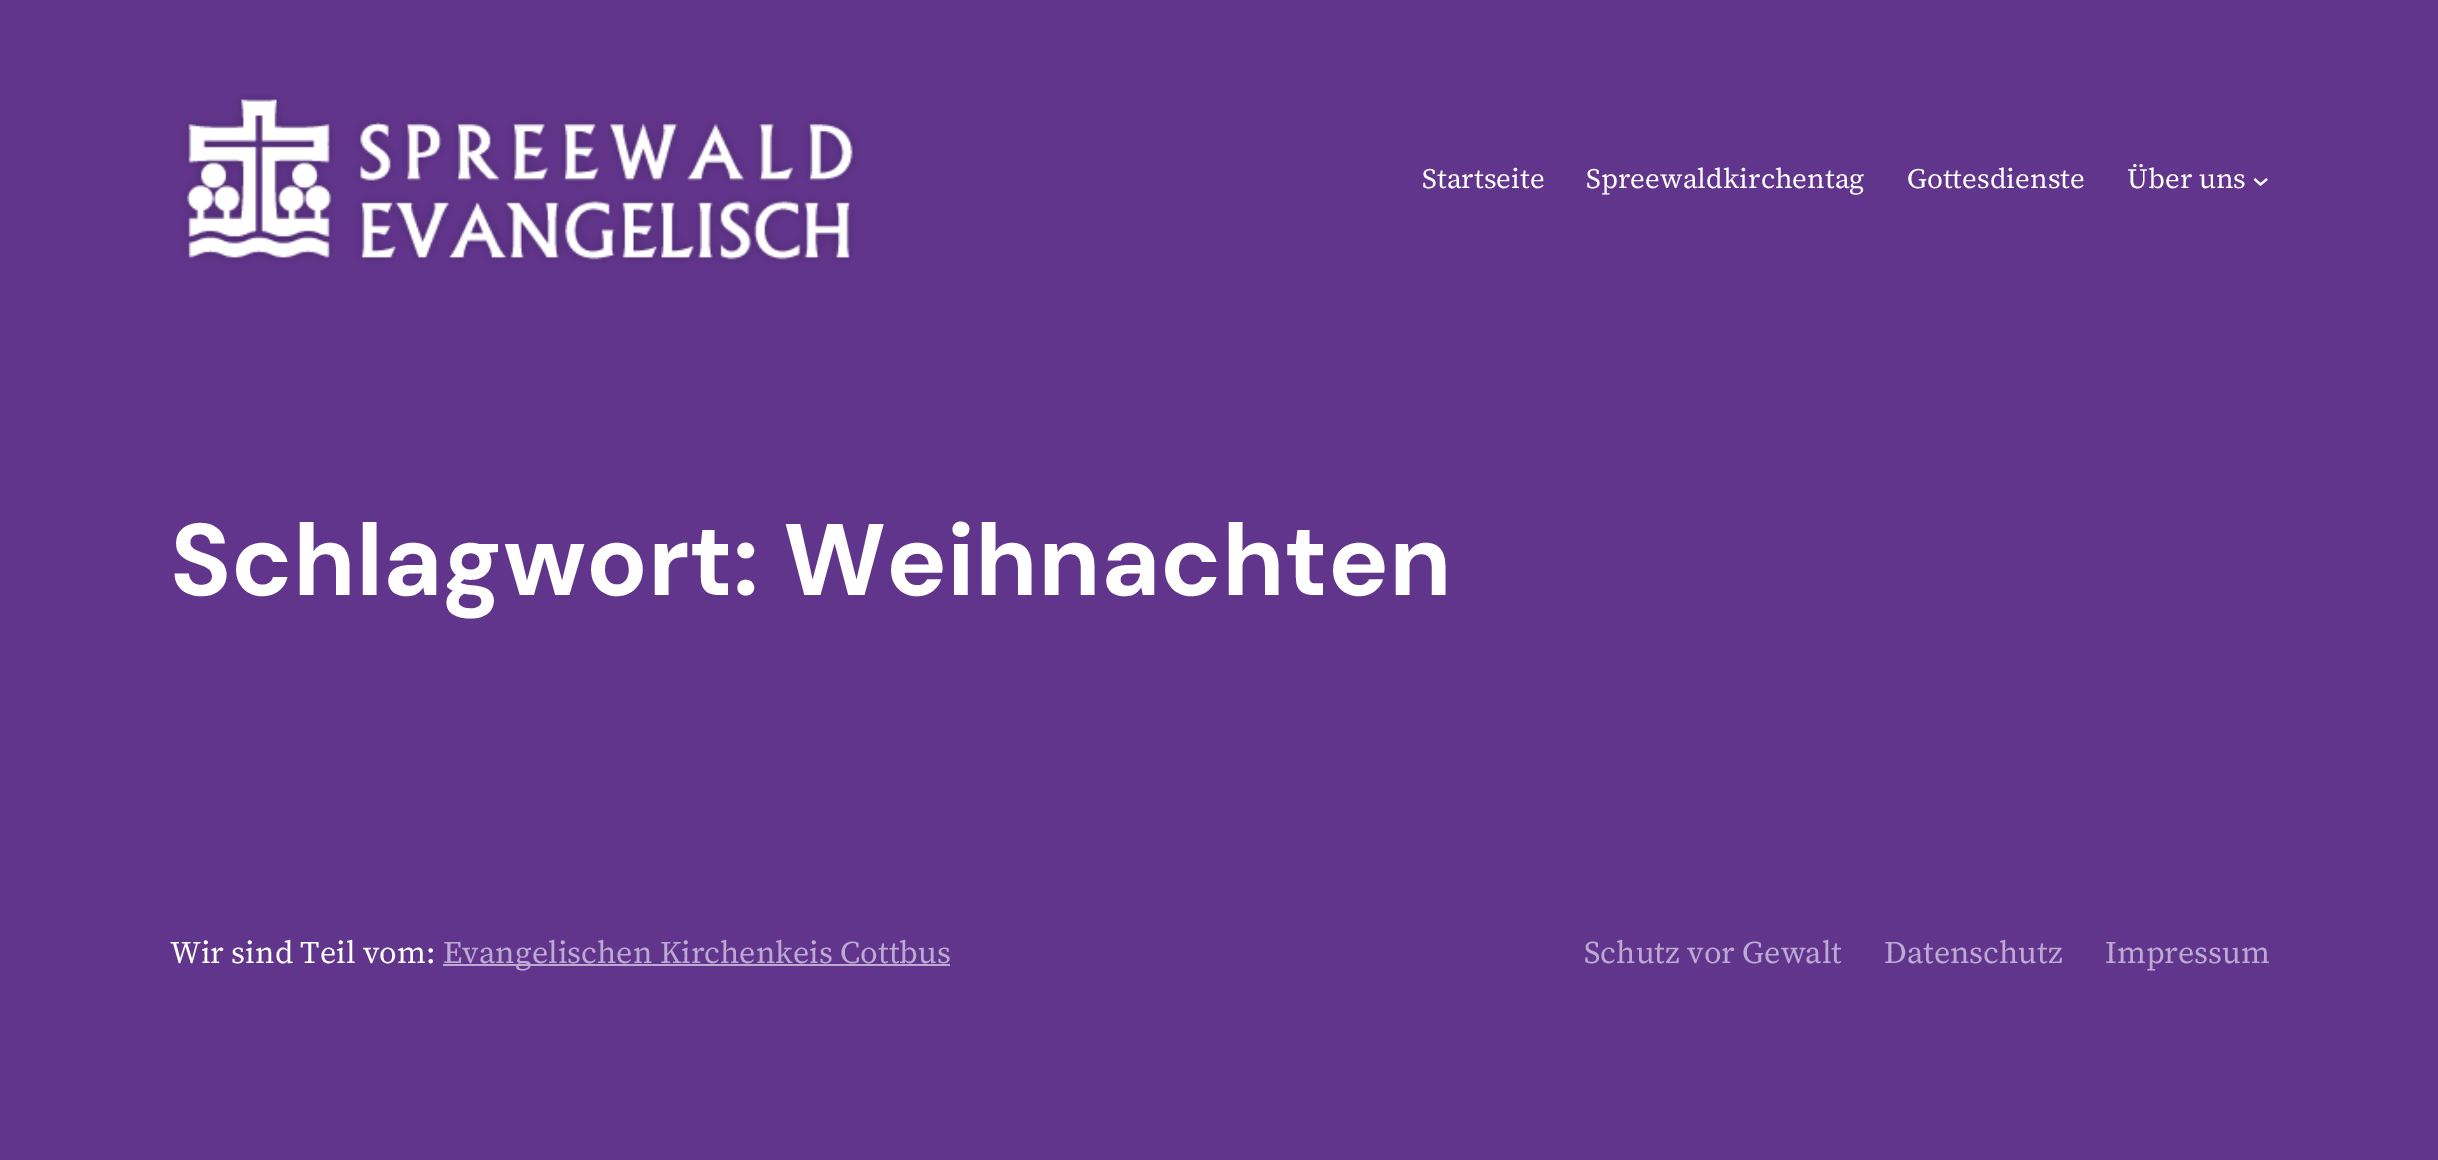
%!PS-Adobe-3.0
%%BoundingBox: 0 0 2438 1160
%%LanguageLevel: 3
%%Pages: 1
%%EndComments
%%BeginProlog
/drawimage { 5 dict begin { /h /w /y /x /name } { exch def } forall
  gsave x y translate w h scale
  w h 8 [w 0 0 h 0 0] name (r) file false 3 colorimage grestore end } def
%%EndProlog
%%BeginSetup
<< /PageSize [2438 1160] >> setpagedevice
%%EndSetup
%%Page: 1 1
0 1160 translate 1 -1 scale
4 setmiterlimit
0.384 0.208 0.549 setrgbcolor
0 0 2438 1160 rectfill
(images/1.raw) 182 94 676 170 drawimage
1 setgray
2.1 setlinewidth
newpath 2254.5 179 moveto 2260.5 184.5 lineto 2267 179 lineto stroke
0.737 0.667 0.827 setrgbcolor
443 964 507 2 rectfill
/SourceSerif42-Regular [28 0 0 -28 0 0] selectfont
1 setgray
1422 188 moveto (Startseite) show
1586 188 moveto (Spreewaldkirchentag) show
1907 188 moveto (Gottesdienste) show
2127 188 moveto (Über uns) show
/DMSans-Bold [101.5 0 0 -101.5 0 0] selectfont
170 595 moveto (Schlagwort: Weihnachten) show
/SourceSerif4-Regular [31.5 0 0 -31.5 0 0] selectfont
170 963 moveto (Wir sind Teil vom:) show
0.737 0.667 0.827 setrgbcolor
443 963 moveto (Evangelischen Kirchenkeis Cottbus) show
1584 963 moveto (Schutz vor Gewalt) show
1884 963 moveto (Datenschutz) show
2105 963 moveto (Impressum) show
showpage
%%EOF
